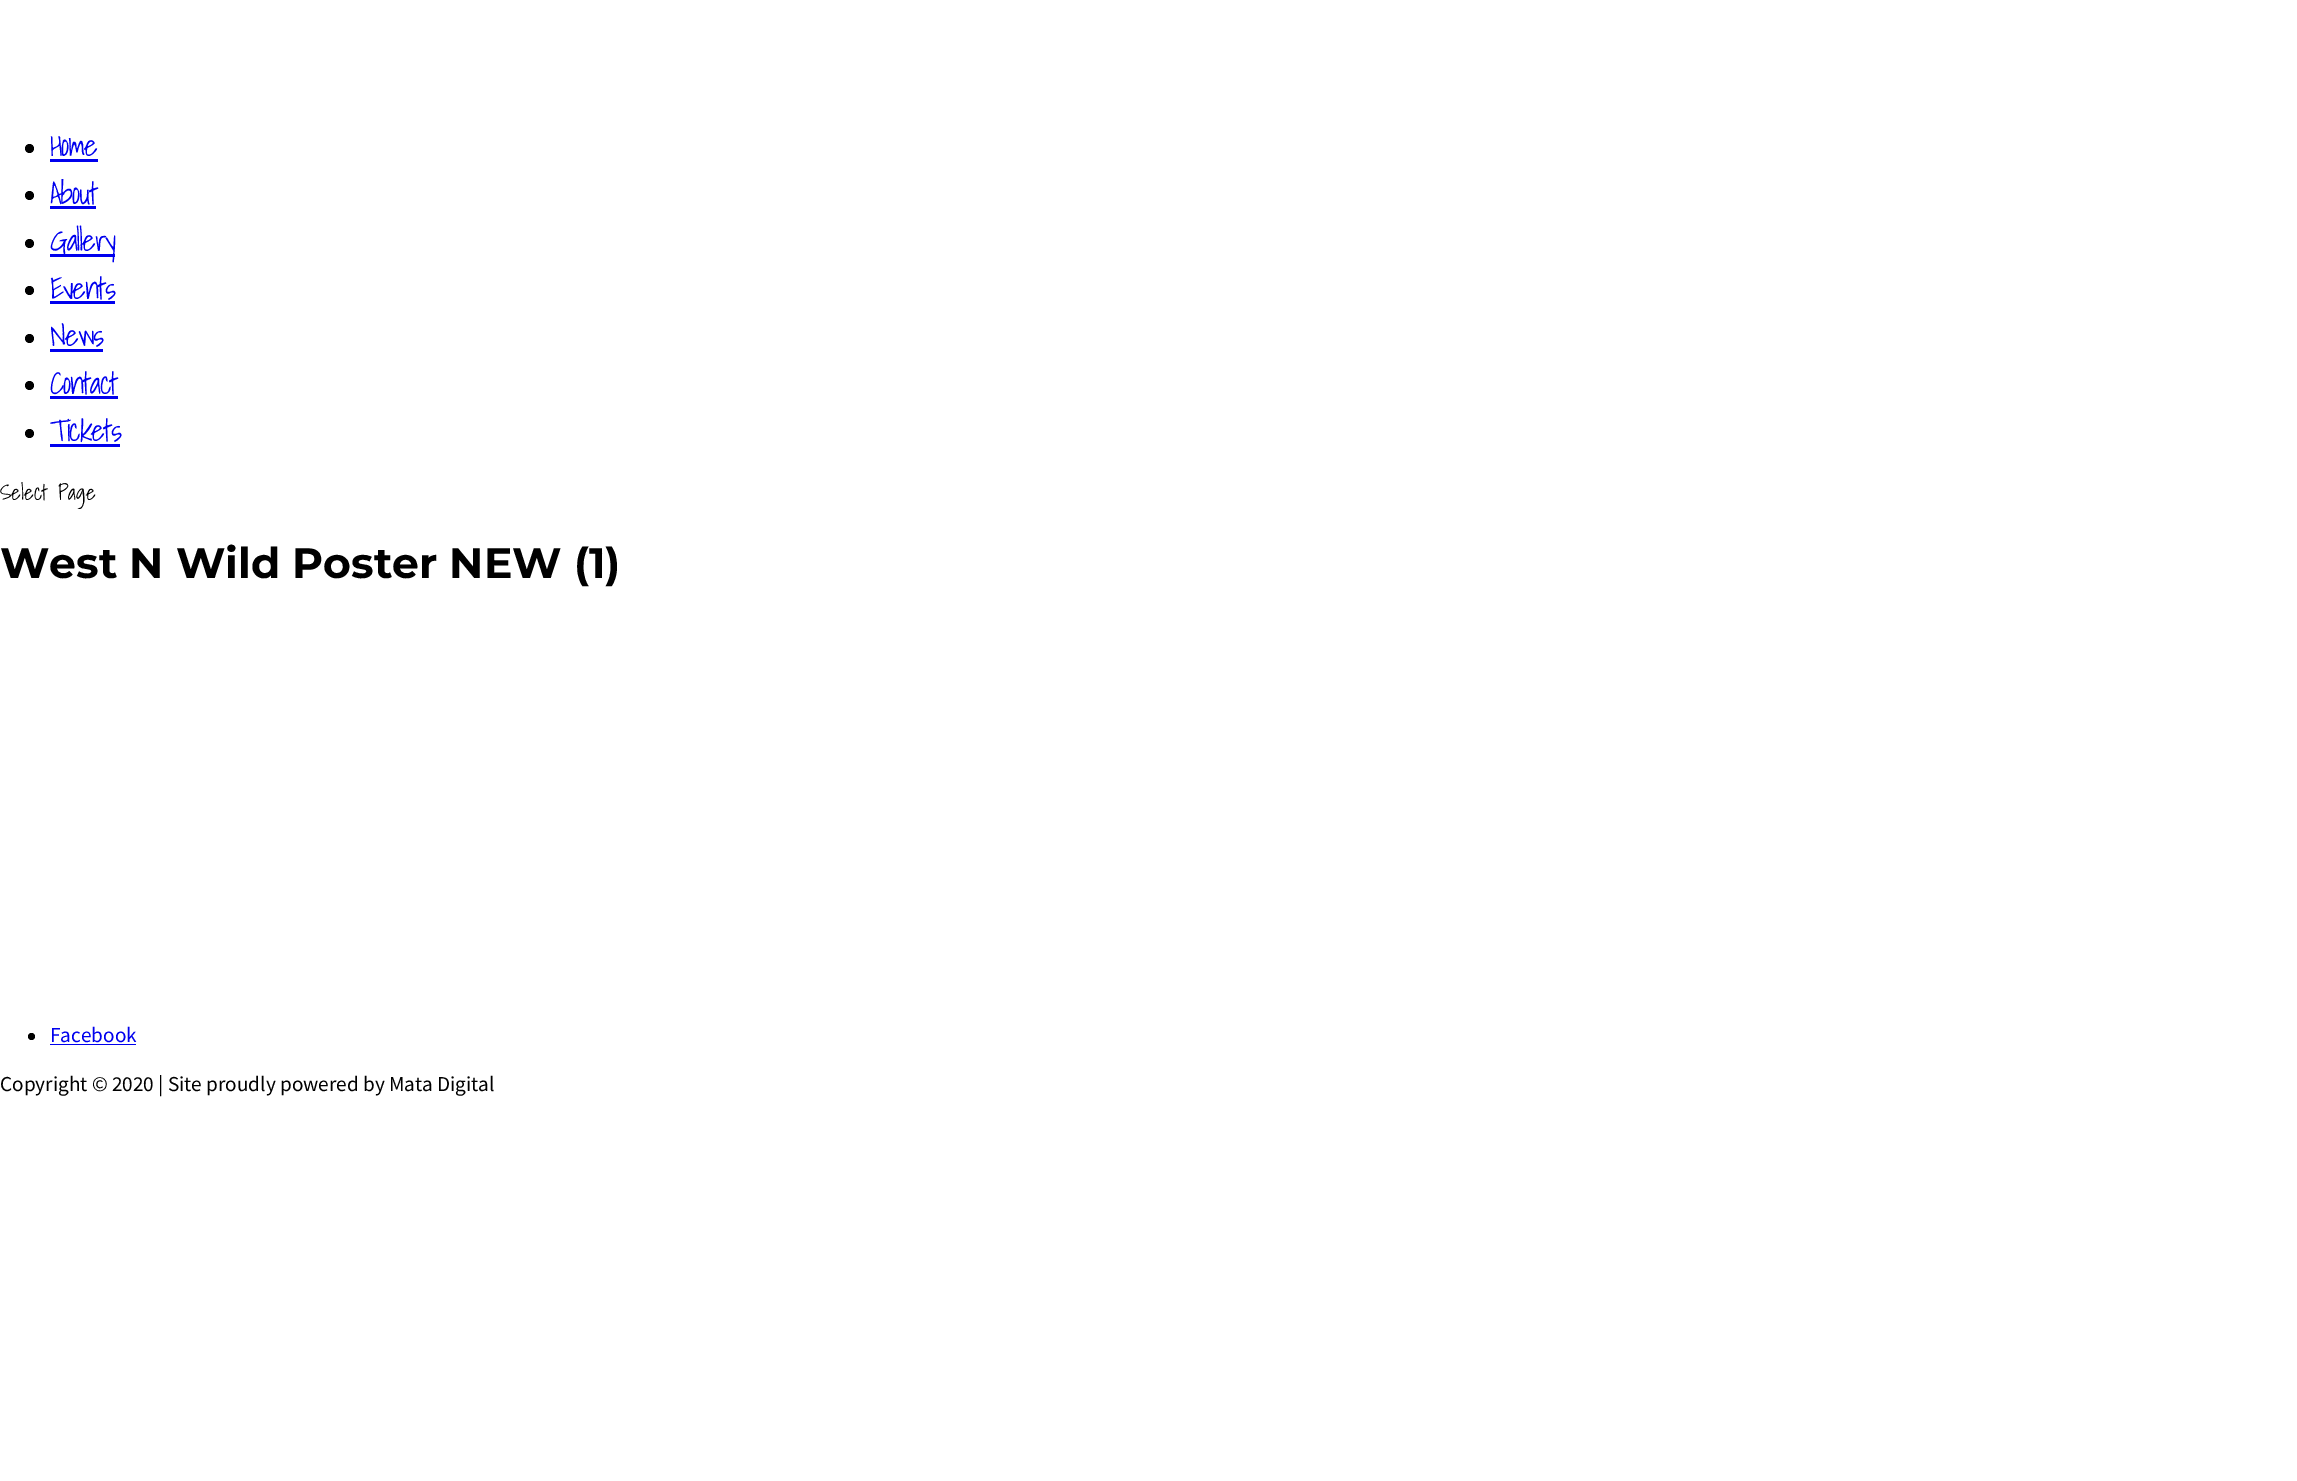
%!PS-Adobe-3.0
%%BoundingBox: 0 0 2297 1481
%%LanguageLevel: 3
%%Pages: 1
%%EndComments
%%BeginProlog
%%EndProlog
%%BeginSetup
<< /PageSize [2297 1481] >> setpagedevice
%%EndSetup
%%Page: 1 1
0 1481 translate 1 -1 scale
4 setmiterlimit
1 setgray
0 0 2297 1481 rectfill
0 setgray
newpath 29.5 148.5 4.5 0 360 arc closepath fill
0 0 0.933 setrgbcolor
50 159 48 3 rectfill
0 setgray
newpath 29.5 195.5 4.5 0 360 arc closepath fill
0 0 0.933 setrgbcolor
50 206 46 3 rectfill
0 setgray
newpath 29.5 243.5 4.5 0 360 arc closepath fill
0 0 0.933 setrgbcolor
50 254 65 3 rectfill
0 setgray
newpath 29.5 290.5 4.5 0 360 arc closepath fill
0 0 0.933 setrgbcolor
50 301 65 3 rectfill
0 setgray
newpath 29.5 338.5 4.5 0 360 arc closepath fill
0 0 0.933 setrgbcolor
50 349 53 3 rectfill
0 setgray
newpath 29.5 385.5 4.5 0 360 arc closepath fill
0 0 0.933 setrgbcolor
50 396 68 3 rectfill
0 setgray
newpath 29.5 433.5 4.5 0 360 arc closepath fill
0 0 0.933 setrgbcolor
50 444 70 3 rectfill
0 setgray
newpath 31.5 1036.5 3.5 0 360 arc closepath fill
0 0 0.933 setrgbcolor
50 1044 86 1 rectfill
/ShadowsIntoLight-Light [30 0 0 -30 0 0] selectfont
50 156 moveto -1.25 0 (Home) ashow
50 204 moveto -1.25 0 (About) ashow
50 251 moveto -1.25 0 (Gallery) ashow
50 299 moveto -1.25 0 (Events) ashow
50 346 moveto -1.25 0 (News) ashow
50 394 moveto -1.25 0 (Contact) ashow
50 441 moveto -1.25 0 (Tickets) ashow
/ShadowsIntoLight-Light [21.25 0 0 -21.25 0 0] selectfont
0 setgray
0 500 moveto (Select Page) show
/Montserrat-Bold [42.5 0 0 -42.5 0 0] selectfont
0 578 moveto (West N Wild Poster NEW \(1\)) show
/SourceSansPro-Regular [21.25 0 0 -21.25 0 0] selectfont
0 0 0.933 setrgbcolor
50 1042 moveto (Facebook) show
0 setgray
0 1091 moveto (Copyright © 2020 | Site proudly powered by Mata Digital) show
showpage
%%EOF
